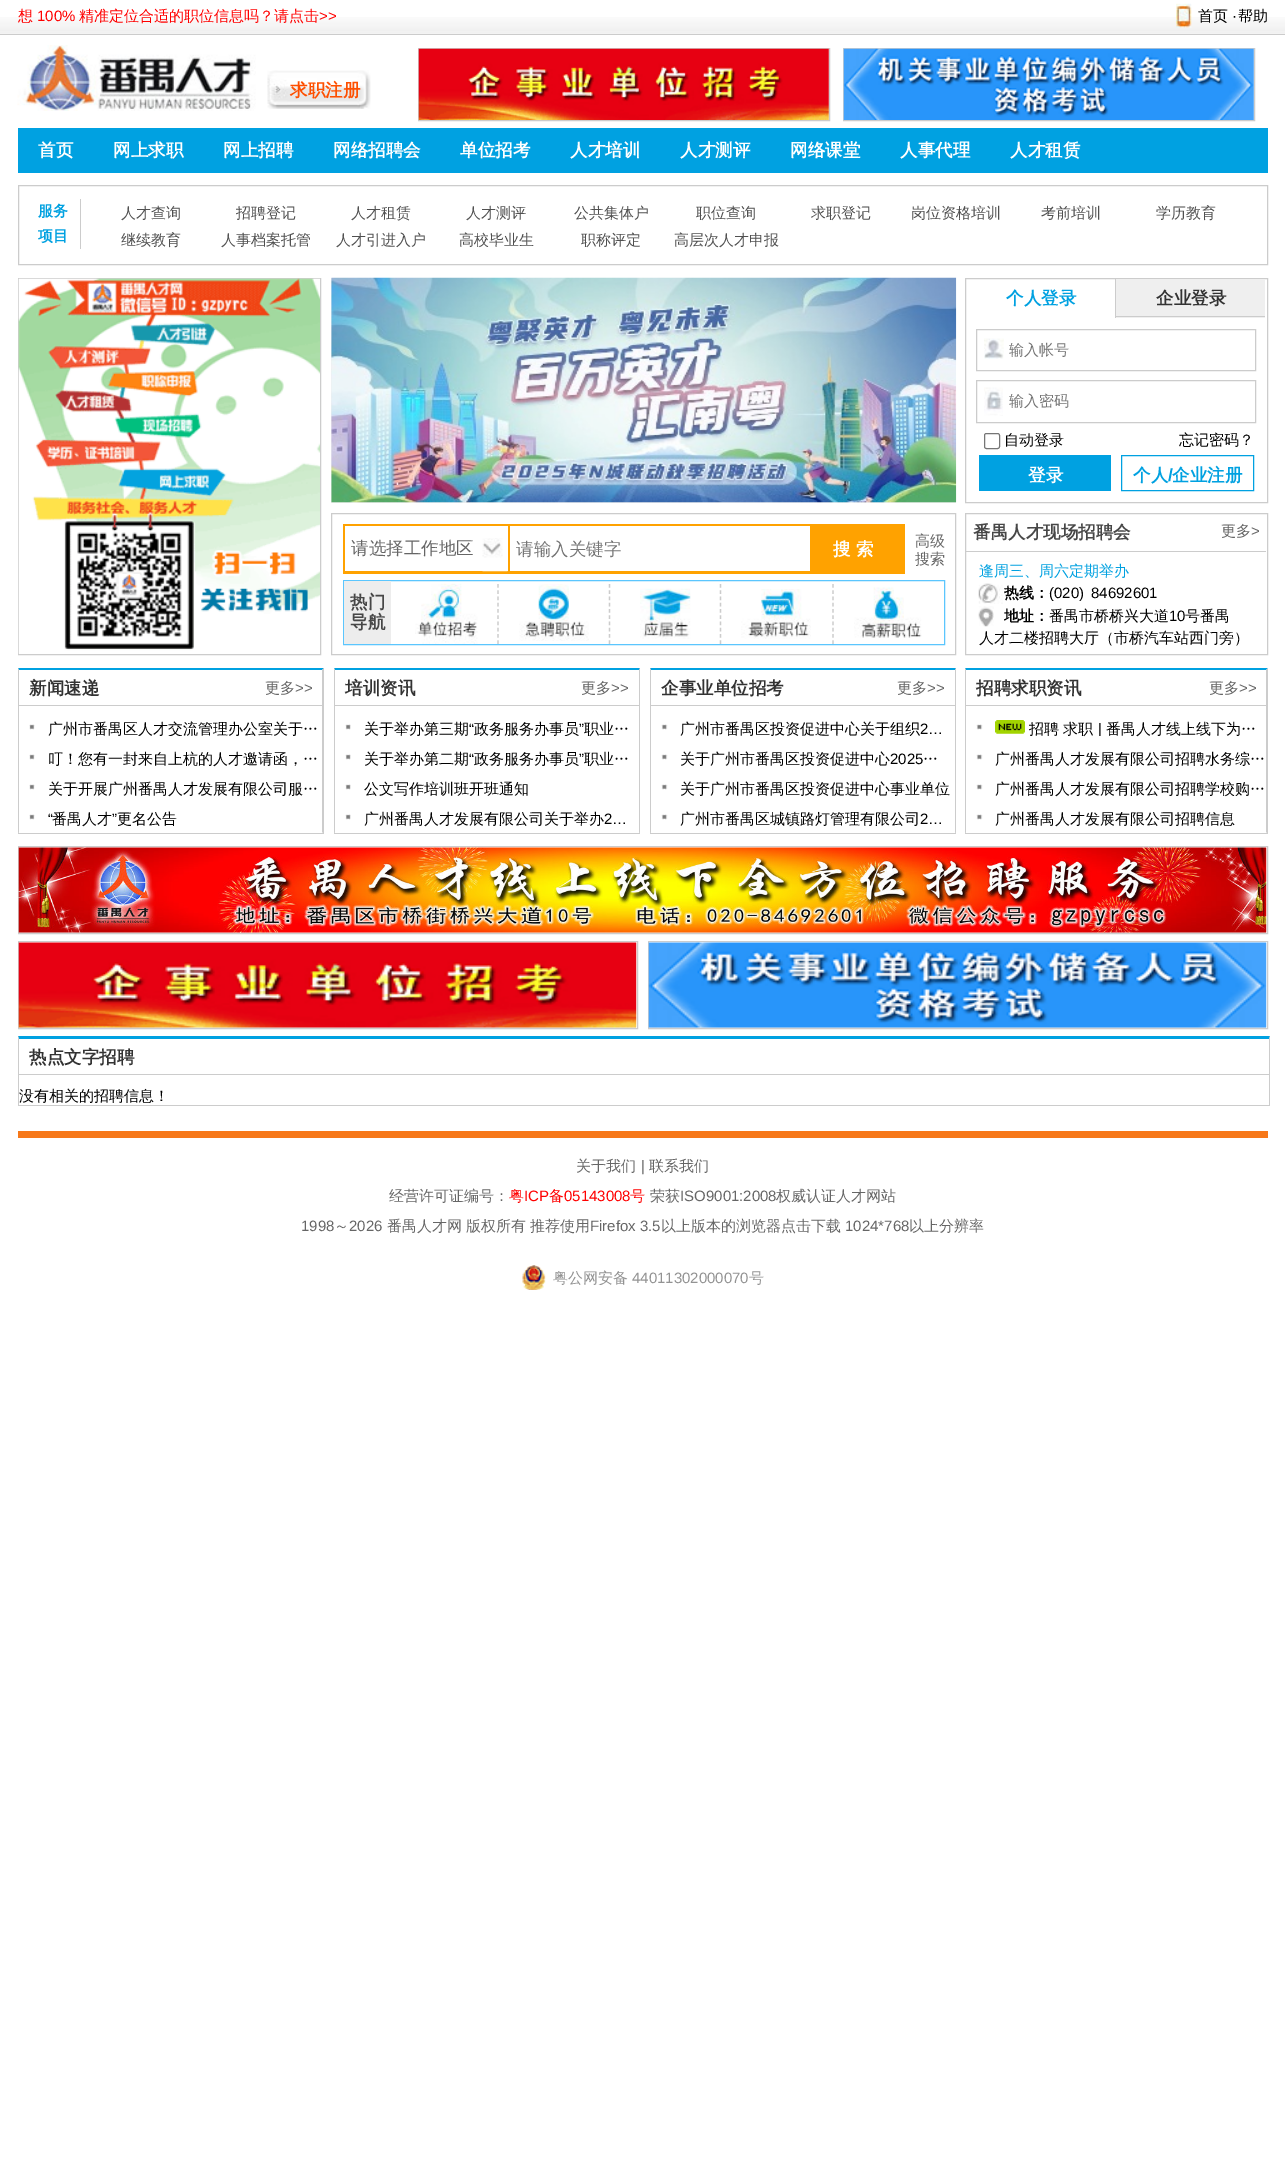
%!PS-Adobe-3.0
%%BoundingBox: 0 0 1285 2168
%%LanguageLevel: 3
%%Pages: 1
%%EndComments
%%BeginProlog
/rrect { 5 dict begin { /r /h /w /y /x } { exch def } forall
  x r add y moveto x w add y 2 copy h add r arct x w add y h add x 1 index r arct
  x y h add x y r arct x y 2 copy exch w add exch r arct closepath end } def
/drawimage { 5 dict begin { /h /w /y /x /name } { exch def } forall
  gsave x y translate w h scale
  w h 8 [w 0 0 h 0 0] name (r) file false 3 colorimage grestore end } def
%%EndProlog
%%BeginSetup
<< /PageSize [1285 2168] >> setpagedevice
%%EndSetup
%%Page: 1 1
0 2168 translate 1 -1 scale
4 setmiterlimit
1 setgray
0 0 1285 2168 rectfill
(images/1.raw) 0 17 1285 17 drawimage
0.8 setgray
0 34 1285 1 rectfill
(images/2.raw) 1176 3 16 25 drawimage
(images/3.raw) 17 45 239 66 drawimage
(images/4.raw) 267 70 104 39 drawimage
418.5 48.5 411 72 rectstroke
(images/5.raw) 418 48 411 72 drawimage
843.5 48.5 411 72 rectstroke
(images/6.raw) 843 48 411 72 drawimage
0 0.631 0.882 setrgbcolor
18 128 1250 45 rectfill
0.8 setgray
18.5 185.5 1249 79 rectstroke
80 199 1 50 rectfill
18.5 278.5 302 376 rectstroke
(images/7.raw) 18 278 302 376 drawimage
0.933 setgray
331 278 625 225 rectfill
(images/8.raw) 331 277 626 226 drawimage
0.8 setgray
965.5 278.5 302 224 rectstroke
0.937 setgray
1116 279 149 39 rectfill
0.8 setgray
1115 316 150 1 rectfill
1115 279 1 39 rectfill
(images/9.raw) 984 338 20 21 drawimage
976.5 329.5 279 41 rectstroke
(images/10.raw) 984 387 19 29 drawimage
976.5 380.5 279 42 rectstroke
0.463 setgray
984.5 433.5 15 15 2 rrect stroke
0 0.631 0.882 setrgbcolor
979 455 132 36 rectfill
1121.5 455.5 132 35 rectstroke
0.8 setgray
331.5 513.5 624 141 rectstroke
1 0.635 0 setrgbcolor
343 524 562 50 rectfill
1 setgray
345 526 163 45 rectfill
(images/11.raw) 482 538 26 34 drawimage
510 526 300 45 rectfill
0.357 0.776 0.996 setrgbcolor
343.5 580.5 601 64 rectstroke
0.929 setgray
344 581 47 63 rectfill
0.8 setgray
1.2 setlinewidth
[3.75 2.5] 0 setdash
newpath 498 584 moveto 498 644 lineto stroke
(images/12.raw) 415 583 63 61 drawimage
newpath 609.5 584 moveto 609.5 644 lineto stroke
(images/13.raw) 519 584 70 57 drawimage
newpath 720.5 584 moveto 720.5 644 lineto stroke
(images/14.raw) 640 588 51 51 drawimage
newpath 833 584 moveto 833 644 lineto stroke
(images/15.raw) 741 589 70 50 drawimage
(images/16.raw) 854 587 68 51 drawimage
1 setlinewidth
[] 0 setdash
965.5 513.5 302 141 rectstroke
966 551 300 1 rectfill
(images/17.raw) 978 583 25 21 drawimage
(images/18.raw) 978 606 16 21 drawimage
0 0.631 0.882 setrgbcolor
newpath 18 668 moveto 324 668 lineto 322 670 lineto 19 670 lineto closepath fill
0.8 setgray
newpath 324 668 moveto 324 834 lineto 322 832 lineto 322 670 lineto closepath fill
18 833 306 1 rectfill
newpath 18 834 moveto 18 668 lineto 19 670 lineto 19 832 lineto closepath fill
19 705 304 1 rectfill
(images/19.raw) 29 724 6 6 drawimage
(images/19.raw) 29 754 6 6 drawimage
(images/19.raw) 29 784 6 6 drawimage
(images/19.raw) 29 814 6 6 drawimage
0 0.631 0.882 setrgbcolor
newpath 334 668 moveto 640 668 lineto 639 670 lineto 335 670 lineto closepath fill
0.8 setgray
newpath 640 668 moveto 640 834 lineto 639 832 lineto 639 670 lineto closepath fill
334 833 306 1 rectfill
newpath 334 834 moveto 334 668 lineto 335 670 lineto 335 832 lineto closepath fill
335 705 304 1 rectfill
(images/20.raw) 345 724 6 6 drawimage
(images/20.raw) 345 754 6 6 drawimage
(images/20.raw) 345 784 6 6 drawimage
(images/20.raw) 345 814 6 6 drawimage
0 0.631 0.882 setrgbcolor
newpath 650 668 moveto 956 668 lineto 955 670 lineto 651 670 lineto closepath fill
0.8 setgray
newpath 956 668 moveto 956 834 lineto 955 832 lineto 955 670 lineto closepath fill
650 833 306 1 rectfill
newpath 650 834 moveto 650 668 lineto 651 670 lineto 651 832 lineto closepath fill
651 705 304 1 rectfill
(images/21.raw) 661 724 7 6 drawimage
(images/21.raw) 661 754 7 6 drawimage
(images/21.raw) 661 784 7 6 drawimage
(images/21.raw) 661 814 7 6 drawimage
0 0.631 0.882 setrgbcolor
newpath 965 668 moveto 1268 668 lineto 1266 670 lineto 966 670 lineto closepath fill
0.8 setgray
newpath 1268 668 moveto 1268 834 lineto 1266 832 lineto 1266 670 lineto closepath fill
965 833 303 1 rectfill
newpath 965 834 moveto 965 668 lineto 966 670 lineto 966 832 lineto closepath fill
966 705 300 1 rectfill
(images/21.raw) 976 724 7 6 drawimage
(images/22.raw) 995 720 30 14 drawimage
(images/21.raw) 976 754 7 6 drawimage
(images/21.raw) 976 784 7 6 drawimage
(images/21.raw) 976 814 7 6 drawimage
18.5 846.5 1249 87 rectstroke
0.91 setgray
19 932 1247 1 rectfill
(images/23.raw) 18 847 1249 86 drawimage
0.8 setgray
18.5 941.5 619 87 rectstroke
0.91 setgray
19 1027 617 1 rectfill
(images/24.raw) 18 942 619 86 drawimage
0.8 setgray
648.5 941.5 619 87 rectstroke
0.91 setgray
649 1027 617 1 rectfill
(images/25.raw) 648 942 619 86 drawimage
0 0.631 0.882 setrgbcolor
newpath 18 1036 moveto 1270 1036 lineto 1269 1039 lineto 19 1039 lineto closepath fill
0.8 setgray
newpath 1270 1036 moveto 1270 1106 lineto 1269 1105 lineto 1269 1039 lineto closepath fill
18 1105 1252 1 rectfill
newpath 18 1106 moveto 18 1036 lineto 19 1039 lineto 19 1105 lineto closepath fill
19 1074 1250 1 rectfill
0.969 0.471 0.098 setrgbcolor
18 1131 1250 7 rectfill
(images/26.raw) 522 1265 24 25 drawimage
/WenQuanYiZenHei-Medium [15 0 0 -15 0 0] selectfont
1 0 0 setrgbcolor
18 21 moveto (想) show
/LiberationSans-Regular [15 0 0 -15 0 0] selectfont
37 21 moveto (100%) show
/WenQuanYiZenHei-Medium [15 0 0 -15 0 0] selectfont
79 21 moveto (精准定位合适的职位信息吗？请点击) show
/LiberationSans-Regular [15 0 0 -15 0 0] selectfont
319 21 moveto (>>) show
/WenQuanYiZenHei-Medium [15 0 0 -15 0 0] selectfont
0 setgray
1198 21 moveto (首页) show
/LiberationSans-Regular [15 0 0 -15 0 0] selectfont
1232 21 moveto (·) show
/WenQuanYiZenHei-Medium [15 0 0 -15 0 0] selectfont
1238 21 moveto (帮助) show
/WenQuanYiZenHei-Bold [17.5 0 0 -17.5 0 0] selectfont
0.996 0.31 0 setrgbcolor
290 96 moveto (求职注册) show
1 setgray
38 156 moveto (首页) show
113 156 moveto (网上求职) show
223 156 moveto (网上招聘) show
333 156 moveto (网络招聘会) show
460 156 moveto (单位招考) show
570 156 moveto (人才培训) show
680 156 moveto (人才测评) show
790 156 moveto (网络课堂) show
900 156 moveto (人事代理) show
1010 156 moveto (人才租赁) show
/WenQuanYiZenHei-Bold [15 0 0 -15 0 0] selectfont
0 0.631 0.882 setrgbcolor
38 216 moveto (服务) show
38 241 moveto (项目) show
/WenQuanYiZenHei-Medium [15 0 0 -15 0 0] selectfont
0.314 setgray
121 218 moveto (人才查询) show
236 218 moveto (招聘登记) show
351 218 moveto (人才租赁) show
466 218 moveto (人才测评) show
574 218 moveto (公共集体户) show
696 218 moveto (职位查询) show
811 218 moveto (求职登记) show
911 218 moveto (岗位资格培训) show
1041 218 moveto (考前培训) show
1156 218 moveto (学历教育) show
121 245 moveto (继续教育) show
221 245 moveto (人事档案托管) show
336 245 moveto (人才引进入户) show
459 245 moveto (高校毕业生) show
581 245 moveto (职称评定) show
674 245 moveto (高层次人才申报) show
/WenQuanYiZenHei-Bold [17.5 0 0 -17.5 0 0] selectfont
0 0.631 0.882 setrgbcolor
1006 304 moveto (个人登录) show
0.2 setgray
1156 304 moveto (企业登录) show
/WenQuanYiZenHei-Medium [15 0 0 -15 0 0] selectfont
0.459 setgray
1009 355 moveto (输入帐号) show
1009 406 moveto (输入密码) show
0 setgray
1004 445 moveto (自动登录) show
1179 445 moveto (忘记密码？) show
/WenQuanYiZenHei-Bold [17.5 0 0 -17.5 0 0] selectfont
1 setgray
1028 481 moveto (登录) show
0 0.631 0.882 setrgbcolor
1133 481 moveto (个人) show
/LiberationSans-Bold [17.5 0 0 -17.5 0 0] selectfont
1168 481 moveto (/) show
/WenQuanYiZenHei-Bold [17.5 0 0 -17.5 0 0] selectfont
1172 481 moveto (企业注册) show
/WenQuanYiZenHei-Medium [17.5 0 0 -17.5 0 0] selectfont
0.4 setgray
351 554 moveto (请选择工作地区) show
0.459 setgray
516 555 moveto (请输入关键字) show
/WenQuanYiZenHei-Bold [17.5 0 0 -17.5 0 0] selectfont
1 setgray
833 555 moveto (搜 索) show
/WenQuanYiZenHei-Medium [15 0 0 -15 0 0] selectfont
0.4 setgray
915 546 moveto (高级) show
915 564 moveto (搜索) show
/WenQuanYiZenHei-Bold [17.5 0 0 -17.5 0 0] selectfont
0.278 setgray
350 608 moveto (热门) show
350 628 moveto (导航) show
973 538 moveto (番禺人才现场招聘会) show
/WenQuanYiZenHei-Medium [15 0 0 -15 0 0] selectfont
0.4 setgray
1221 536 moveto (更多) show
/LiberationSans-Regular [15 0 0 -15 0 0] selectfont
1251 536 moveto (>) show
/WenQuanYiZenHei-Medium [15 0 0 -15 0 0] selectfont
0 0.631 0.882 setrgbcolor
979 576 moveto (逢周三、周六定期举办) show
/WenQuanYiZenHei-Bold [15 0 0 -15 0 0] selectfont
0 setgray
1004 598 moveto (热线：) show
/LiberationSans-Regular [15 0 0 -15 0 0] selectfont
1049 598 moveto (\(020\)) show
1091 598 moveto (84692601) show
/WenQuanYiZenHei-Bold [15 0 0 -15 0 0] selectfont
1004 621 moveto (地址：) show
/WenQuanYiZenHei-Medium [15 0 0 -15 0 0] selectfont
1049 621 moveto (番禺市桥桥兴大道) show
/LiberationSans-Regular [15 0 0 -15 0 0] selectfont
1169 621 moveto (10) show
/WenQuanYiZenHei-Medium [15 0 0 -15 0 0] selectfont
1185 621 moveto (号番禺) show
979 643 moveto (人才二楼招聘大厅（市桥汽车站西门旁）) show
/WenQuanYiZenHei-Bold [17.5 0 0 -17.5 0 0] selectfont
0.2 setgray
29 694 moveto (新闻速递) show
/WenQuanYiZenHei-Medium [15 0 0 -15 0 0] selectfont
0.4 setgray
265 693 moveto (更多) show
/LiberationSans-Regular [15 0 0 -15 0 0] selectfont
295 693 moveto (>>) show
gsave
38 716 281 20 rectclip
/WenQuanYiZenHei-Medium [15 0 0 -15 0 0] selectfont
0 setgray
48 734 moveto (广州市番禺区人才交流管理办公室关于…) show
grestore
/WenQuanYiZenHei-Medium [15 0 0 -15 0 0] selectfont
0 setgray
48 764 moveto (叮！您有一封来自上杭的人才邀请函，…) show
48 794 moveto (关于开展广州番禺人才发展有限公司服…) show
/LiberationSans-Regular [15 0 0 -15 0 0] selectfont
48 824 moveto (“) show
/WenQuanYiZenHei-Medium [15 0 0 -15 0 0] selectfont
52 824 moveto (番禺人才) show
/LiberationSans-Regular [15 0 0 -15 0 0] selectfont
112 824 moveto (”) show
gsave
38 806 281 20 rectclip
/WenQuanYiZenHei-Medium [15 0 0 -15 0 0] selectfont
117 824 moveto (更名公告) show
grestore
/WenQuanYiZenHei-Bold [17.5 0 0 -17.5 0 0] selectfont
0.2 setgray
345 694 moveto (培训资讯) show
/WenQuanYiZenHei-Medium [15 0 0 -15 0 0] selectfont
0.4 setgray
581 693 moveto (更多) show
/LiberationSans-Regular [15 0 0 -15 0 0] selectfont
611 693 moveto (>>) show
/WenQuanYiZenHei-Medium [15 0 0 -15 0 0] selectfont
0 setgray
364 734 moveto (关于举办第三期) show
/LiberationSans-Regular [15 0 0 -15 0 0] selectfont
469 734 moveto (“) show
/WenQuanYiZenHei-Medium [15 0 0 -15 0 0] selectfont
474 734 moveto (政务服务办事员) show
/LiberationSans-Regular [15 0 0 -15 0 0] selectfont
579 734 moveto (”) show
/WenQuanYiZenHei-Medium [15 0 0 -15 0 0] selectfont
584 734 moveto (职业…) show
364 764 moveto (关于举办第二期) show
/LiberationSans-Regular [15 0 0 -15 0 0] selectfont
469 764 moveto (“) show
/WenQuanYiZenHei-Medium [15 0 0 -15 0 0] selectfont
474 764 moveto (政务服务办事员) show
/LiberationSans-Regular [15 0 0 -15 0 0] selectfont
579 764 moveto (”) show
/WenQuanYiZenHei-Medium [15 0 0 -15 0 0] selectfont
584 764 moveto (职业…) show
364 794 moveto (公文写作培训班开班通知) show
364 824 moveto (广州番禺人才发展有限公司关于举办) show
/LiberationSans-Regular [15 0 0 -15 0 0] selectfont
604 824 moveto (2…) show
/WenQuanYiZenHei-Bold [17.5 0 0 -17.5 0 0] selectfont
0.2 setgray
661 694 moveto (企事业单位招考) show
/WenQuanYiZenHei-Medium [15 0 0 -15 0 0] selectfont
0.4 setgray
897 693 moveto (更多) show
/LiberationSans-Regular [15 0 0 -15 0 0] selectfont
927 693 moveto (>>) show
/WenQuanYiZenHei-Medium [15 0 0 -15 0 0] selectfont
0 setgray
680 734 moveto (广州市番禺区投资促进中心关于组织) show
/LiberationSans-Regular [15 0 0 -15 0 0] selectfont
920 734 moveto (2…) show
/WenQuanYiZenHei-Medium [15 0 0 -15 0 0] selectfont
680 764 moveto (关于广州市番禺区投资促进中心) show
/LiberationSans-Regular [15 0 0 -15 0 0] selectfont
890 764 moveto (2025) show
/WenQuanYiZenHei-Medium [15 0 0 -15 0 0] selectfont
923 764 moveto (…) show
680 794 moveto (关于广州市番禺区投资促进中心事业单位) show
680 824 moveto (广州市番禺区城镇路灯管理有限公司) show
/LiberationSans-Regular [15 0 0 -15 0 0] selectfont
920 824 moveto (2…) show
/WenQuanYiZenHei-Bold [17.5 0 0 -17.5 0 0] selectfont
0.2 setgray
976 694 moveto (招聘求职资讯) show
/WenQuanYiZenHei-Medium [15 0 0 -15 0 0] selectfont
0.4 setgray
1209 693 moveto (更多) show
/LiberationSans-Regular [15 0 0 -15 0 0] selectfont
1239 693 moveto (>>) show
/WenQuanYiZenHei-Medium [15 0 0 -15 0 0] selectfont
0 setgray
1029 734 moveto (招聘 求职) show
gsave
985 716 281 20 rectclip
/LiberationSans-Regular [15 0 0 -15 0 0] selectfont
1098 734 moveto (|) show
grestore
1106 734 moveto (番禺人才线上线下为…) show
995 764 moveto (广州番禺人才发展有限公司招聘水务综…) show
995 794 moveto (广州番禺人才发展有限公司招聘学校购…) show
995 824 moveto (广州番禺人才发展有限公司招聘信息) show
/WenQuanYiZenHei-Bold [17.5 0 0 -17.5 0 0] selectfont
0.2 setgray
29 1063 moveto (热点文字招聘) show
/WenQuanYiZenHei-Medium [15 0 0 -15 0 0] selectfont
0 setgray
19 1101 moveto (没有相关的招聘信息！) show
0.4 setgray
576 1171 moveto (关于我们) show
/LiberationSans-Regular [15 0 0 -15 0 0] selectfont
641 1171 moveto (|) show
/WenQuanYiZenHei-Medium [15 0 0 -15 0 0] selectfont
649 1171 moveto (联系我们) show
389 1201 moveto (经营许可证编号：) show
1 0 0 setrgbcolor
509 1201 moveto (粤) show
/LiberationSans-Regular [15 0 0 -15 0 0] selectfont
524 1201 moveto (ICP) show
/WenQuanYiZenHei-Medium [15 0 0 -15 0 0] selectfont
549 1201 moveto (备) show
/LiberationSans-Regular [15 0 0 -15 0 0] selectfont
564 1201 moveto (05143008) show
/WenQuanYiZenHei-Medium [15 0 0 -15 0 0] selectfont
630 1201 moveto (号) show
0.4 setgray
650 1201 moveto (荣获) show
/LiberationSans-Regular [15 0 0 -15 0 0] selectfont
680 1201 moveto (ISO9001:2008) show
/WenQuanYiZenHei-Medium [15 0 0 -15 0 0] selectfont
776 1201 moveto (权威认证人才网站) show
/LiberationSans-Regular [15 0 0 -15 0 0] selectfont
301 1231 moveto (1998) show
/WenQuanYiZenHei-Medium [15 0 0 -15 0 0] selectfont
334 1231 moveto (～) show
/LiberationSans-Regular [15 0 0 -15 0 0] selectfont
349 1231 moveto (2026) show
/WenQuanYiZenHei-Medium [15 0 0 -15 0 0] selectfont
387 1231 moveto (番禺人才网) show
466 1231 moveto (版权所有) show
530 1231 moveto (推荐使用) show
/LiberationSans-Regular [15 0 0 -15 0 0] selectfont
590 1231 moveto (Firefox 3.5) show
/WenQuanYiZenHei-Medium [15 0 0 -15 0 0] selectfont
661 1231 moveto (以上版本的浏览器点击下载) show
/LiberationSans-Regular [15 0 0 -15 0 0] selectfont
845 1231 moveto (1024*768) show
/WenQuanYiZenHei-Medium [15 0 0 -15 0 0] selectfont
909 1231 moveto (以上分辨率) show
0.576 setgray
553 1283 moveto (粤公网安备) show
/LiberationSans-Regular [15 0 0 -15 0 0] selectfont
632 1283 moveto (44011302000070) show
/WenQuanYiZenHei-Medium [15 0 0 -15 0 0] selectfont
749 1283 moveto (号) show
showpage
%%EOF
